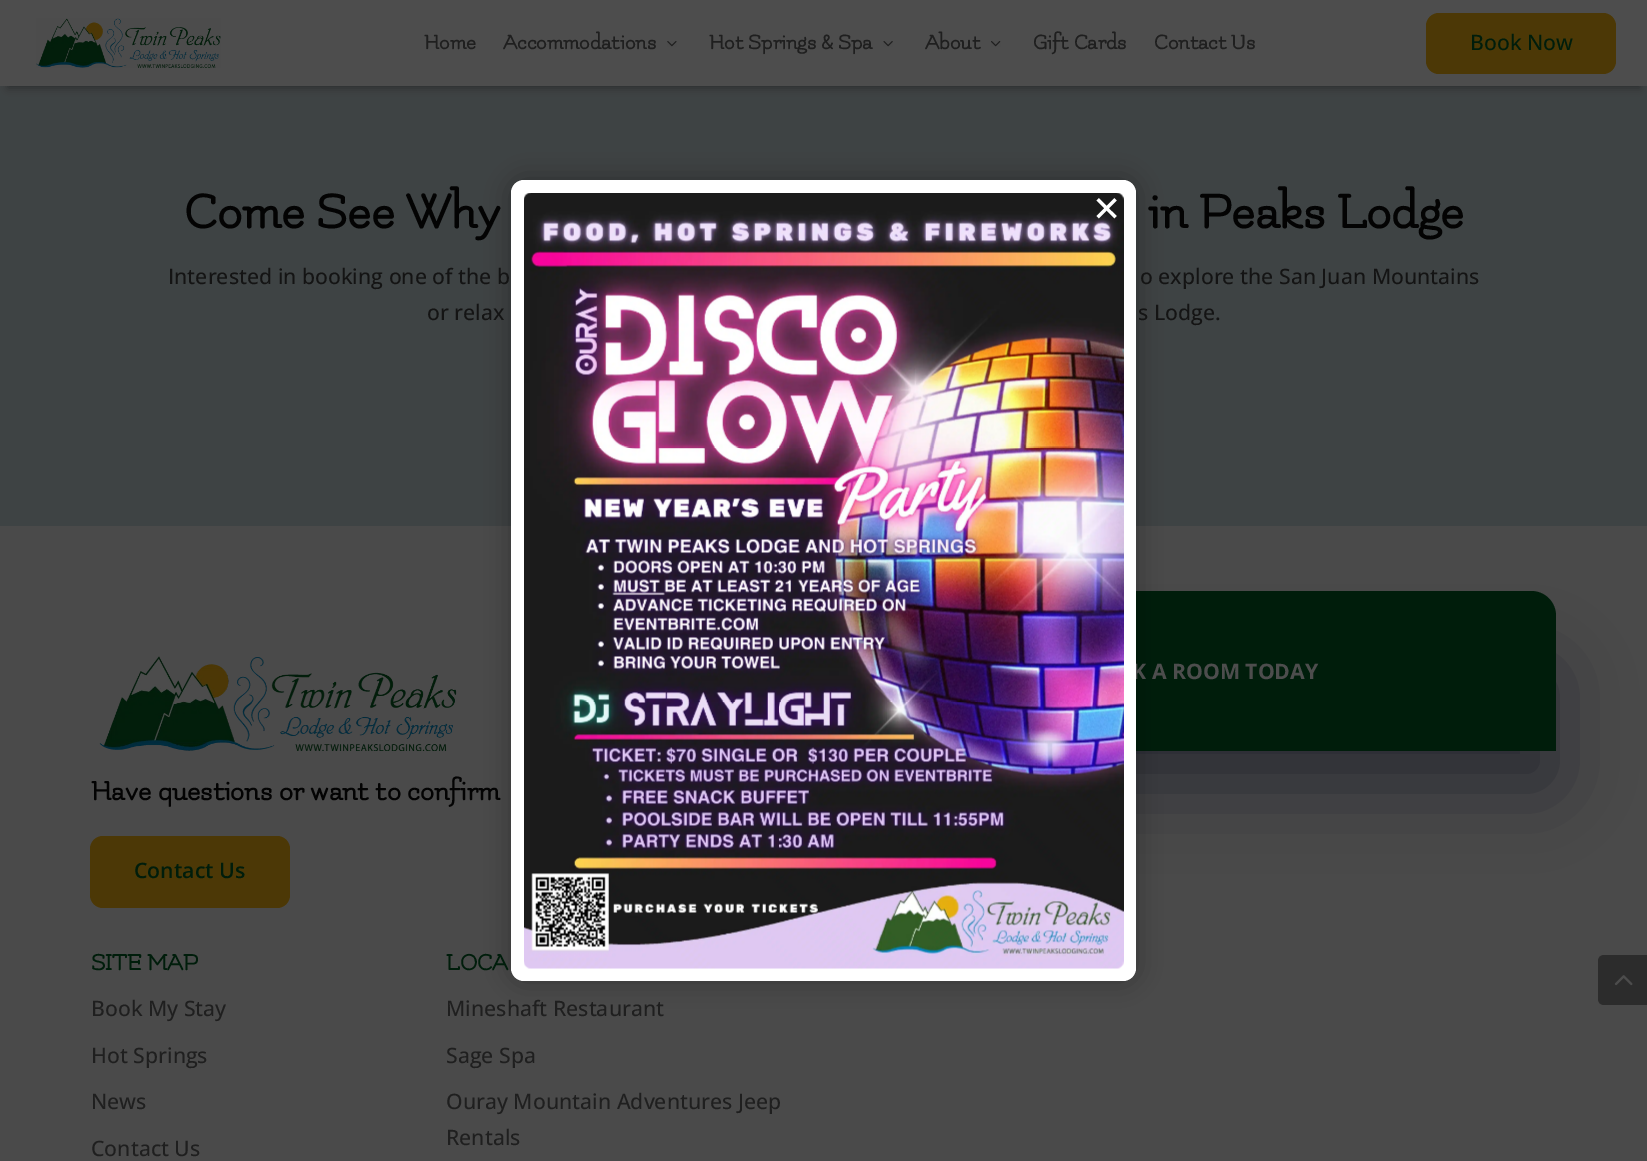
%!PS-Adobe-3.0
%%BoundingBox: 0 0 1647 1161
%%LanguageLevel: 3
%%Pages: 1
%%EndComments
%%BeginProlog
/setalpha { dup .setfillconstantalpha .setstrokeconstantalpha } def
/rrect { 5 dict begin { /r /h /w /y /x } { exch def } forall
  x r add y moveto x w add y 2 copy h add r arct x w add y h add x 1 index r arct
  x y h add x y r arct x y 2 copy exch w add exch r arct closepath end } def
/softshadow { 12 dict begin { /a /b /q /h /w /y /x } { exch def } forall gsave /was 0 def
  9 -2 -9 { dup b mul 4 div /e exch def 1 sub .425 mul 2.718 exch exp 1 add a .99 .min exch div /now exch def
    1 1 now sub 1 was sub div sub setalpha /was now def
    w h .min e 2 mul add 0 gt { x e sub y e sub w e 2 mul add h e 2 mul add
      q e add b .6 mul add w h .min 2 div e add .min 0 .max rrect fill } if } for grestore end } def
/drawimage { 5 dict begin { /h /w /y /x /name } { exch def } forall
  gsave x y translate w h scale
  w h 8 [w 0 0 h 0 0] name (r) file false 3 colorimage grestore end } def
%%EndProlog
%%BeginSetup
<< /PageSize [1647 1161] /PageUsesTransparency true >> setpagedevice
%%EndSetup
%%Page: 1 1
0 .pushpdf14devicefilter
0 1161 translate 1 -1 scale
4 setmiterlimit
0.243 0.263 0.267 setrgbcolor
0 0 1647 1161 rectfill
0 setgray
8 16 1632 72 0 4 0.3 softshadow
0.302 setgray
0 0 1647 86 rectfill
(images/1.raw) 36 18 185 50 drawimage
(images/2.raw) 667 41 10 6 drawimage
(images/3.raw) 883 41 10 6 drawimage
(images/4.raw) 991 41 10 6 drawimage
0.298 0.22 0.024 setrgbcolor
1426 13 190 61 13 rrect fill
0.29 setgray
0 526 1647 635 rectfill
0 0.004 0.078 setrgbcolor
890 674 660 110 0 40 0.44 softshadow
0 0.114 0.043 setrgbcolor
newpath 871 591 moveto 1531 591 lineto 1545 591 1556 602 1556 616 curveto 1556 751 lineto 846 751 lineto 846 616 lineto 846 602 857 591 871 591 curveto closepath fill
(images/5.raw) 99 656 358 95 drawimage
0.298 0.22 0.024 setrgbcolor
90 836 200 72 13 rrect fill
0 setgray
511 180 625 801 13 12.5 0.3 softshadow
0.173 setgray
newpath 1604 955 moveto 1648 955 lineto 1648 1005 lineto 1604 1005 lineto 1600.5 1005 1598 1002.5 1598 999 curveto 1598 961 lineto 1598 957.5 1600.5 955 1604 955 curveto closepath fill
(images/7.raw) 1614 975 19 11 drawimage
/Flamenco-Bold [22.5 0 0 -22.5 0 0] selectfont
0.122 setgray
424 49 moveto (Home) show
503 49 moveto (Accommodations) show
709 49 moveto (Hot Springs & Spa) show
925 49 moveto (About) show
1033 49 moveto (Gift Cards) show
1154 49 moveto (Contact Us) show
/OpenSans-Medium [21.25 0 0 -21.25 0 0] selectfont
0 0.114 0.043 setrgbcolor
1470 50 moveto (Book Now) show
/Flamenco-Bold [53.75 0 0 -53.75 0 0] selectfont
0.012 setgray
184 228 moveto (Come See Why) show
1148 228 moveto (in Peaks Lodge) show
/OpenSans-Medium [21.25 0 0 -21.25 0 0] selectfont
0.078 setgray
168 284 moveto (Interested in booking one of the b) show
1140 284 moveto (o explore the San Juan Mountains) show
427 320 moveto (or relax) show
1138 320 moveto (s Lodge.) show
/OpenSans-Bold [21.25 0 0 -21.25 0 0] selectfont
0.302 setgray
1132 679 moveto (K A ROOM TODAY) show
/Flamenco-Bold [30 0 0 -30 0 0] selectfont
0.012 setgray
91 800 moveto (Have questions or want to confirm) show
/OpenSans-SemiBold [21.25 0 0 -21.25 0 0] selectfont
0 0.114 0.043 setrgbcolor
134 878 moveto (Contact Us) show
/Flamenco-Bold [25 0 0 -25 0 0] selectfont
91 970 moveto (SITE MAP) show
/OpenSans-Medium [21.25 0 0 -21.25 0 0] selectfont
0.122 setgray
91 1016 moveto (Book My Stay) show
91 1063 moveto (Hot Springs) show
91 1109 moveto (News) show
91 1156 moveto (Contact Us) show
/Flamenco-Bold [25 0 0 -25 0 0] selectfont
0 0.114 0.043 setrgbcolor
446 970 moveto (LOCA) show
/OpenSans-Medium [21.25 0 0 -21.25 0 0] selectfont
0.122 setgray
446 1016 moveto (Mineshaft Restaurant) show
446 1063 moveto (Sage Spa) show
446 1109 moveto (Ouray Mountain Adventures Jeep) show
446 1145 moveto (Rentals) show
1 setgray
511 180 625 801 13 rrect fill
(images/6.raw) 524 193 600 776 drawimage
/DejaVuSans-Regular [35 0 0 -35 0 0] selectfont
1092 221 moveto (✕) show
.poppdf14devicefilter showpage
%%EOF
